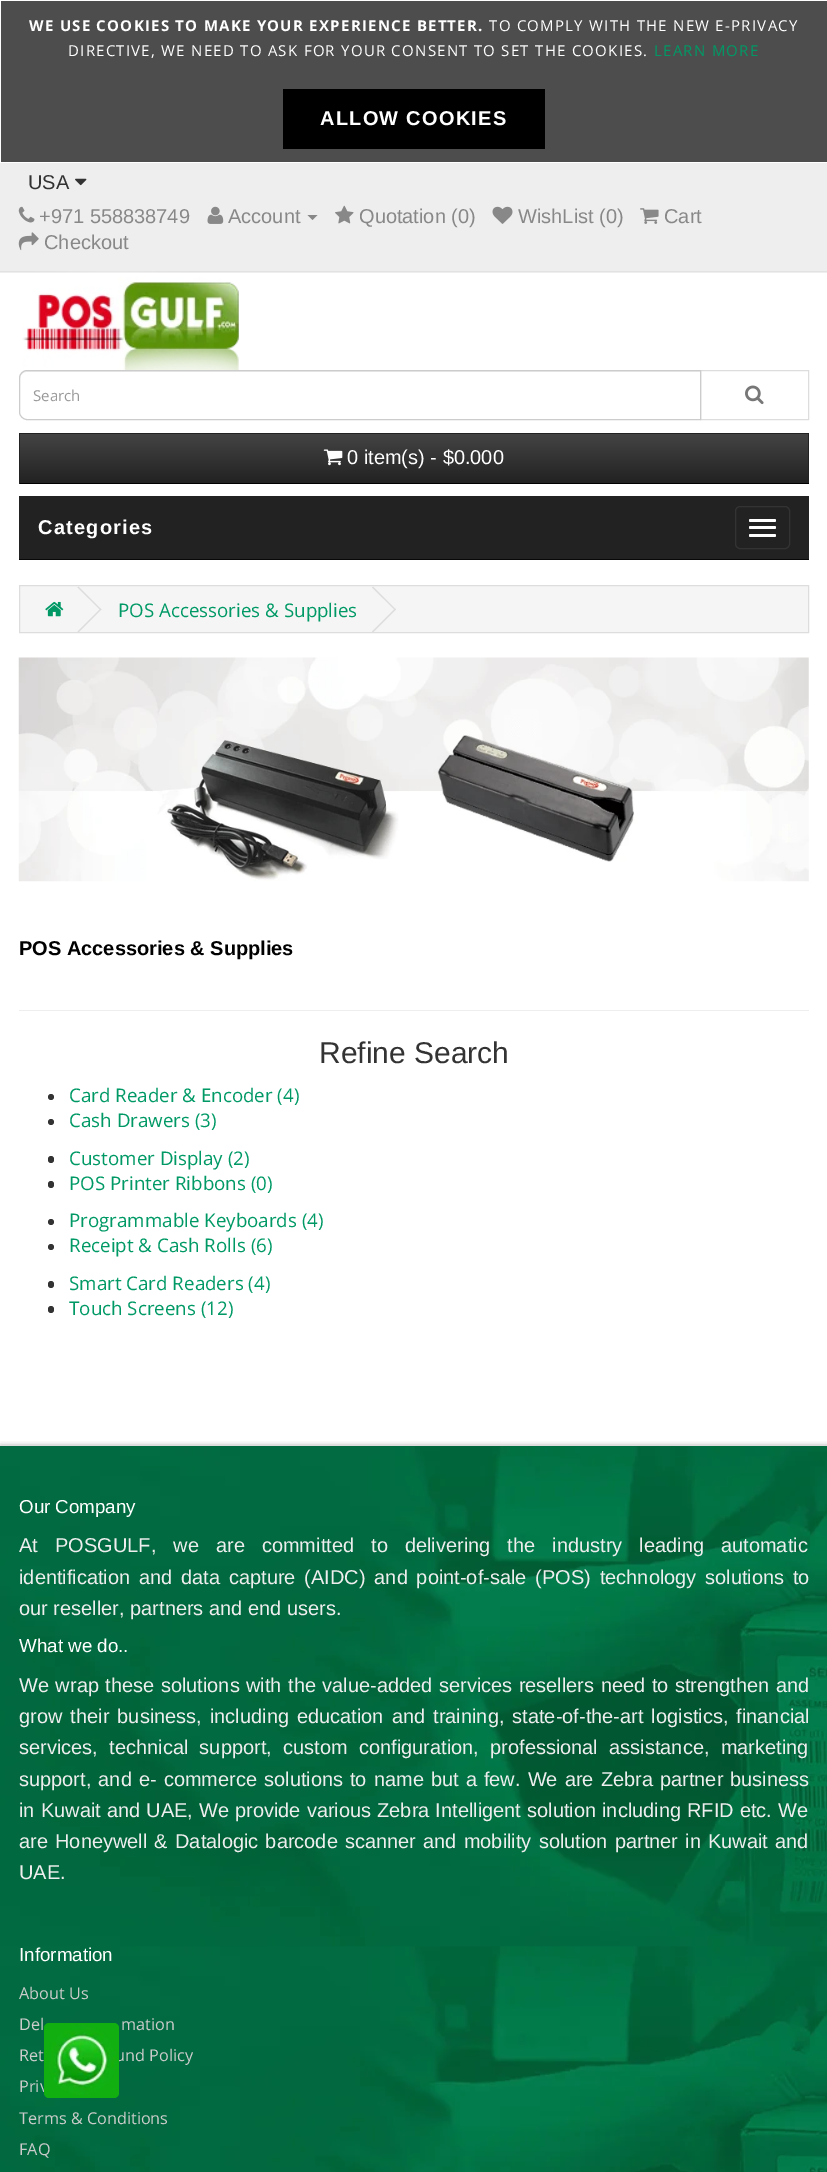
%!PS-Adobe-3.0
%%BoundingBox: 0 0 827 2172
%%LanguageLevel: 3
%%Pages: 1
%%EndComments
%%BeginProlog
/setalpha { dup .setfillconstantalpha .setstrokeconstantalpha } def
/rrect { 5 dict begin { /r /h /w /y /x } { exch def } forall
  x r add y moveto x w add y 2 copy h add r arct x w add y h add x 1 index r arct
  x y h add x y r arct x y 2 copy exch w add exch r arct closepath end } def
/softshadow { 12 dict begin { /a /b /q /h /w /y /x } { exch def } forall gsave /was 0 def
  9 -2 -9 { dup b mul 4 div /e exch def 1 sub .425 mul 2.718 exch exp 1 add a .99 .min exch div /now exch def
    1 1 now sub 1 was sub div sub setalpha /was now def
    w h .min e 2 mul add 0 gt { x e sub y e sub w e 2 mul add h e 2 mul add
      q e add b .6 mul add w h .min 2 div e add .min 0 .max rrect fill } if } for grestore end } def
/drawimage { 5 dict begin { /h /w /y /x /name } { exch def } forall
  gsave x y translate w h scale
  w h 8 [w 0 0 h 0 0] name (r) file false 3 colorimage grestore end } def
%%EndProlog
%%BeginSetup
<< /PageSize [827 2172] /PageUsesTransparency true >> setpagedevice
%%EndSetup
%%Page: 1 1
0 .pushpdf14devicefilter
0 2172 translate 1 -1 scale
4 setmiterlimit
1 setgray
0 0 827 2172 rectfill
0.302 setgray
1 1 826 161 rectfill
0 setgray
283 89 262 60 rectfill
0.933 setgray
0 163 827 110 rectfill
0.886 setgray
0 271 827 1 rectfill
(images/1.raw) 75 178 12 8 drawimage
(images/2.raw) 18 206 17 17 drawimage
(images/3.raw) 207 206 17 18 drawimage
0.533 setgray
newpath 307.5 215 moveto 317.5 215 lineto 312.5 220 lineto closepath fill
(images/4.raw) 335 205 19 19 drawimage
(images/5.raw) 492 206 21 18 drawimage
(images/6.raw) 640 208 19 16 drawimage
(images/7.raw) 18 232 21 19 drawimage
(images/8.raw) 22 271 217 99 drawimage
0.867 setgray
700.5 370.5 108 49 rectstroke
1 setgray
newpath 27 370 moveto 701 370 lineto 701 420 lineto 27 420 lineto 22.5 420 19 416.5 19 412 curveto 19 378 lineto 19 373.5 22.5 370 27 370 curveto closepath fill
0.925 setgray
newpath 26 372 moveto 700 372 lineto 700 371 lineto 26 371 lineto 21 371 20 375 20 379 curveto 20 375 23 372 26 372 curveto closepath fill
0.8 setgray
newpath 27 370.5 moveto 700.5 370.5 lineto 700.5 419.5 lineto 27 419.5 lineto 23 419.5 19.5 416 19.5 412 curveto 19.5 378 lineto 19.5 374 23 370.5 27 370.5 curveto closepath stroke
(images/9.raw) 745 385 19 20 drawimage
gsave newpath 20 434 moveto 808 434 lineto 808 483 lineto 20 483 lineto closepath clip newpath
<< /ShadingType 2 /ColorSpace /DeviceRGB /Coords [414 434 414 483] /Extend [true true] /Function << /FunctionType 2 /Domain [0 1] /C0 [0.267 0.267 0.267] /C1 [0.133 0.133 0.133] /N 1 >> >> shfill grestore
0.133 setgray
19 433 790 1 rectfill
808 433 1 51 rectfill
0 setgray
19 483 790 1 rectfill
0.133 setgray
19 433 1 51 rectfill
(images/10.raw) 323 449 20 17 drawimage
19 496 790 63 rectfill
0.031 setgray
19 559 790 1 rectfill
0.2 setgray
735.5 506.5 54 42 4.5 rrect stroke
1 setgray
749 519 27 3 1.5 rrect fill
749 526 27 3 1.5 rrect fill
749 534 27 3 1.5 rrect fill
0.961 setgray
newpath 19.5 585.5 moveto 808.5 585.5 lineto 808.5 632.5 lineto 19.5 632.5 lineto closepath gsave fill grestore
0.867 setgray
stroke
(images/11.raw) 45 601 19 16 drawimage
newpath 77.5 587.5 moveto 78.5 586.5 lineto 101.5 609.5 lineto 100.5 610 lineto closepath fill
newpath 77.5 631.5 moveto 100.5 608.5 lineto 101.5 609.5 lineto 78.5 632.5 lineto closepath fill
newpath 372 587.5 moveto 373 586.5 lineto 396 609.5 lineto 395 610 lineto closepath fill
newpath 372 631.5 moveto 395 608.5 lineto 396 609.5 lineto 373 632.5 lineto closepath fill
(images/12.raw) 18 657 791 225 drawimage
0.933 setgray
19 1010 790 1 rectfill
0.2 setgray
newpath 51 1097 3 0 360 arc closepath fill
newpath 51 1122 3 0 360 arc closepath fill
48 1156 6 7 3 rrect fill
48 1181 6 7 3 rrect fill
newpath 51 1222 3 0 360 arc closepath fill
newpath 51 1247 3 0 360 arc closepath fill
48 1281 6 7 3 rrect fill
48 1306 6 7 3 rrect fill
0 setgray
1 1448 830 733 0 3 1 softshadow
(images/13.raw) 0 1446 827 726 drawimage
0.867 setgray
0 1445 827 1 rectfill
/OpenSans-Bold [15 0 0 -15 0 0] selectfont
1 setgray
29 31 moveto 1.25 0 (WE USE COOKIES TO MAKE YOUR EXPERIENCE BETTER.) ashow
/OpenSans-Regular [15 0 0 -15 0 0] selectfont
489 31 moveto 1.25 0 (TO COMPLY WITH THE NEW E-PRIVACY) ashow
68 56 moveto 1.25 0 (DIRECTIVE, WE NEED TO ASK FOR YOUR CONSENT TO SET THE COOKIES.) ashow
0 0.6 0.4 setrgbcolor
654 56 moveto 1.25 0 (LEARN MORE) ashow
/LiberationSans-Bold [20 0 0 -20 0 0] selectfont
1 setgray
320 125 moveto 1.25 0 (ALLOW COOKIES) ashow
/LiberationSans-Regular [20 0 0 -20 0 0] selectfont
0.2 setgray
28 189 moveto (USA) show
0.533 setgray
39 223 moveto (+971 558838749) show
228 223 moveto (Account) show
359 223 moveto (Quotation \(0\)) show
518 223 moveto (WishList \(0\)) show
664 223 moveto (Cart) show
44 249 moveto (Checkout) show
/OpenSans-Regular [15 0 0 -15 0 0] selectfont
0.6 setgray
33 401 moveto (Search) show
/LiberationSans-Regular [20 0 0 -20 0 0] selectfont
1 setgray
347 464 moveto (0 item\(s\) - $0.000) show
/LiberationSans-Bold [20 0 0 -20 0 0] selectfont
38 534 moveto 1.25 0 (Categories) ashow
/OpenSans-Regular [18.75 0 0 -18.75 0 0] selectfont
0 0.6 0.4 setrgbcolor
118 617 moveto (POS Accessories & Supplies) show
/LiberationSans-Bold [20 0 0 -20 0 0] selectfont
0 setgray
19 955 moveto (POS Accessories & Supplies) show
/LiberationSans-Regular [30 0 0 -30 0 0] selectfont
0.2 setgray
319 1063 moveto (Refine Search) show
/OpenSans-Regular [18.75 0 0 -18.75 0 0] selectfont
0 0.6 0.4 setrgbcolor
69 1102 moveto (Card Reader & Encoder \(4\)) show
69 1127 moveto (Cash Drawers \(3\)) show
69 1165 moveto (Customer Display \(2\)) show
69 1190 moveto (POS Printer Ribbons \(0\)) show
69 1227 moveto (Programmable Keyboards \(4\)) show
69 1252 moveto (Receipt & Cash Rolls \(6\)) show
69 1290 moveto (Smart Card Readers \(4\)) show
69 1315 moveto (Touch Screens \(12\)) show
/LiberationSans-Regular [18.75 0 0 -18.75 0 0] selectfont
1 setgray
19 1513 moveto (Our Company) show
/LiberationSans-Regular [20 0 0 -20 0 0] selectfont
0.933 setgray
19 1552 moveto 11.5 0 32 (At POSGULF, we are committed to delivering the industry leading automatic) widthshow
19 1584 moveto 3.25 0 32 (identification and data capture \(AIDC\) and point-of-sale \(POS\) technology solutions to) widthshow
19 1615 moveto (our reseller, partners and end users.) show
/LiberationSans-Regular [18.75 0 0 -18.75 0 0] selectfont
1 setgray
19 1652 moveto (What we do..) show
/LiberationSans-Regular [20 0 0 -20 0 0] selectfont
0.933 setgray
19 1692 moveto 0.9 0 32 (We wrap these solutions with the value-added services resellers need to strengthen and) widthshow
19 1723 moveto 2.5 0 32 (grow their business, including education and training, state-of-the-art logistics, financial) widthshow
19 1754 moveto 5.75 0 32 (services, technical support, custom configuration, professional assistance, marketing) widthshow
19 1786 moveto 1.5 0 32 (support, and e- commerce solutions to name but a few. We are Zebra partner business) widthshow
19 1817 moveto 0.5 0 32 (in Kuwait and UAE, We provide various Zebra Intelligent solution including RFID etc. We) widthshow
19 1848 moveto 1.6 0 32 (are Honeywell & Datalogic barcode scanner and mobility solution partner in Kuwait and) widthshow
19 1879 moveto (UAE.) show
/LiberationSans-Regular [18.75 0 0 -18.75 0 0] selectfont
1 setgray
19 1961 moveto (Information) show
/OpenSans-Regular [16.25 0 0 -16.25 0 0] selectfont
0.8 setgray
19 1999 moveto (About Us) show
19 2030 moveto (Del) show
121 2030 moveto (mation) show
19 2061 moveto (Ret) show
115 2061 moveto (und Policy) show
19 2092 moveto (Priv) show
19 2124 moveto (Terms & Conditions) show
19 2155 moveto (FAQ) show
0.071 0.686 0.067 setrgbcolor
44 2023 75 75 5 rrect fill
(images/14.raw) 49 2025 67 70 drawimage
.poppdf14devicefilter showpage
%%EOF
